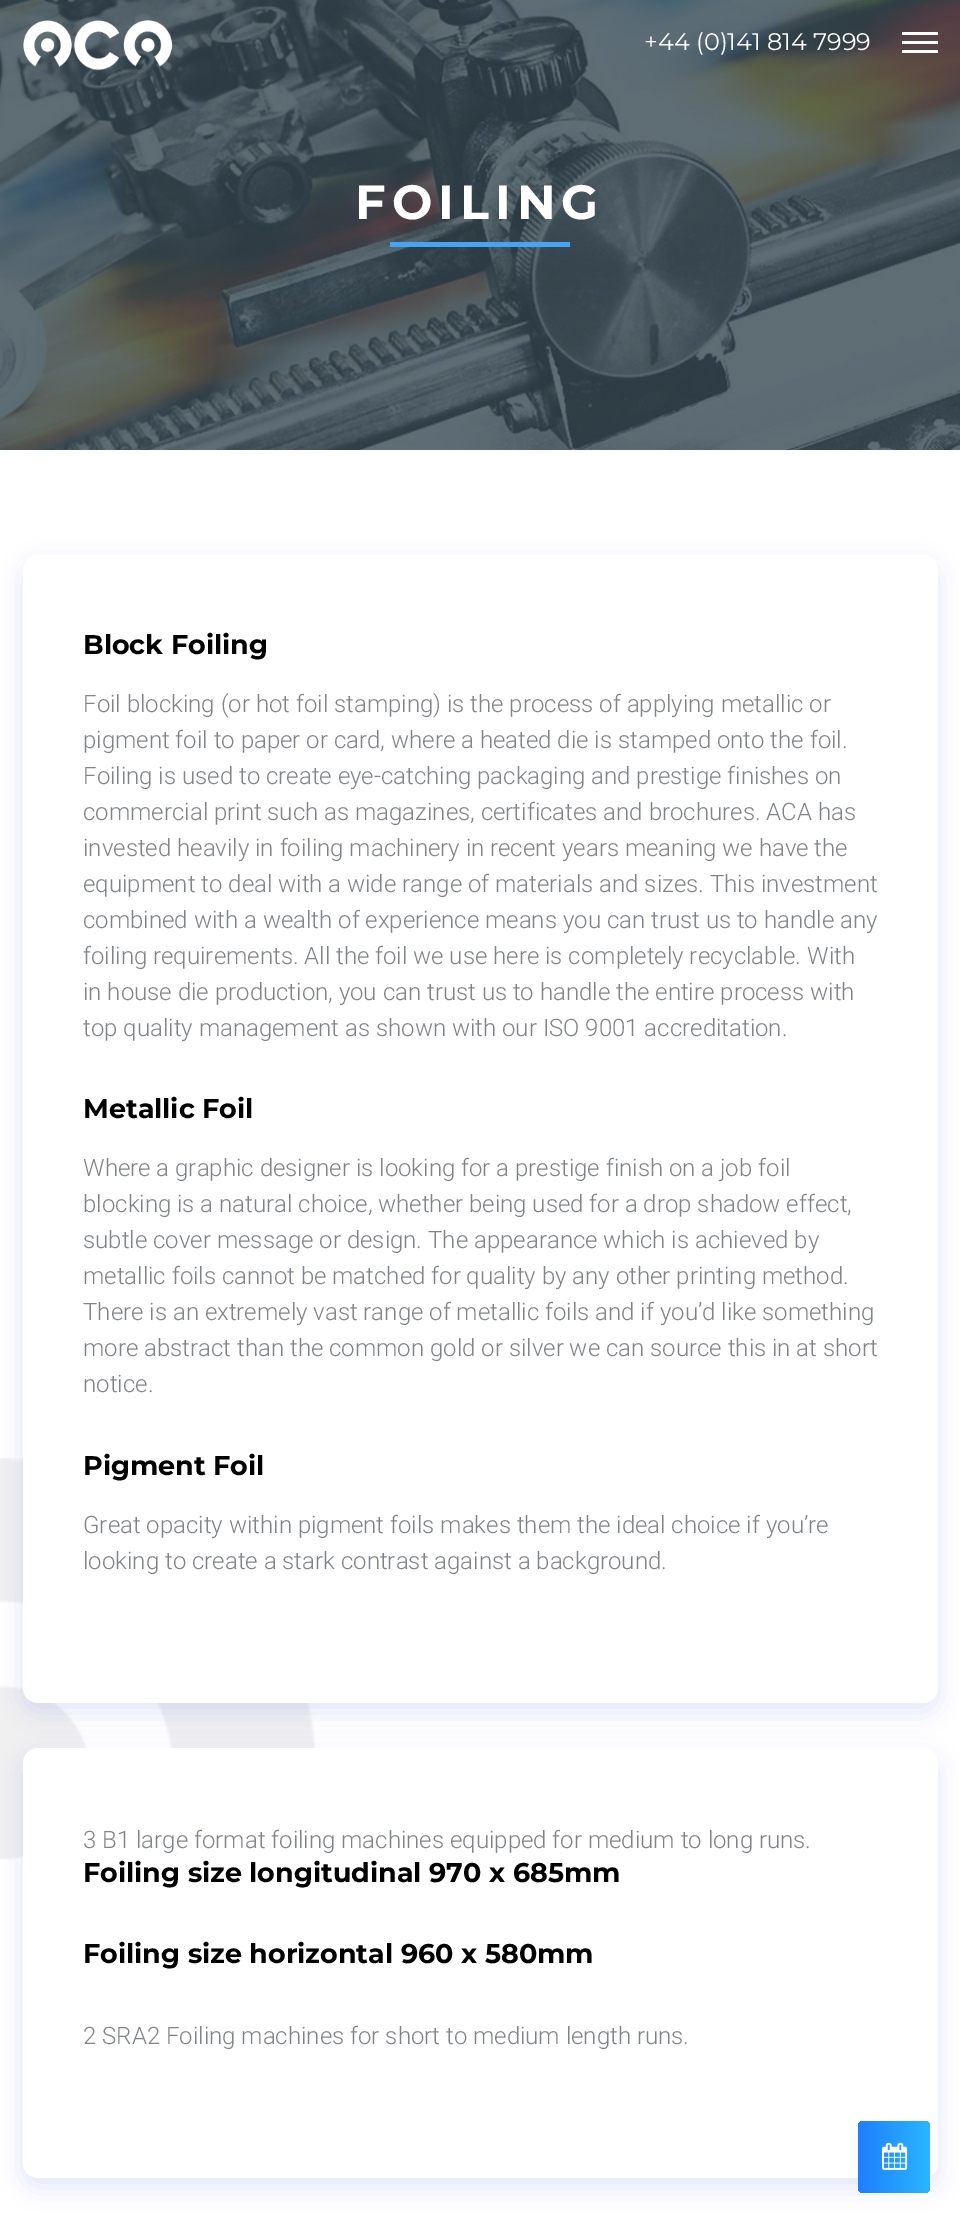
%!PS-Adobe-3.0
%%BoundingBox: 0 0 960 2223
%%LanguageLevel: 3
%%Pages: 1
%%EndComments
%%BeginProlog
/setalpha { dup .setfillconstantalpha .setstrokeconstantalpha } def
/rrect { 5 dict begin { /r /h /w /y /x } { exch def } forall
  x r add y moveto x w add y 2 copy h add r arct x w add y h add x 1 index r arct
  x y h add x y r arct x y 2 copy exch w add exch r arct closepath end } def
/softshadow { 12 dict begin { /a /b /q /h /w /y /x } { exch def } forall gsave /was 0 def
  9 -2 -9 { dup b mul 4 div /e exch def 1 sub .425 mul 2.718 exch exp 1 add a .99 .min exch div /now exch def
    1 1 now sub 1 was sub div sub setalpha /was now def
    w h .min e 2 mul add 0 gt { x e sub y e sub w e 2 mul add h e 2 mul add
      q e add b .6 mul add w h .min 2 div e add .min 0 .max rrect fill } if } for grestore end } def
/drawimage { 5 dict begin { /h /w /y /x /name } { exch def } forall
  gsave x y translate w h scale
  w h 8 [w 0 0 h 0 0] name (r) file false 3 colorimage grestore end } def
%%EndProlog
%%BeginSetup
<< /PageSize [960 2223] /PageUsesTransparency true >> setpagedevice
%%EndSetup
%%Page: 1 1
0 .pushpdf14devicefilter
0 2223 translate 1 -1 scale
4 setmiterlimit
1 setgray
0 0 960 2223 rectfill
(images/2.raw) 0 0 960 450 drawimage
(images/1.raw) 23 20 150 51 drawimage
902 32 36 3 rectfill
902 41 36 3 rectfill
902 50 36 3 rectfill
0.259 0.647 0.965 setrgbcolor
390 242 180 5 rectfill
(images/3.raw) 0 1458 315 403 drawimage
0.416 0.498 0.902 setrgbcolor
23 564 915 1148 15 12 0.2 softshadow
1 setgray
23 555 915 1148 15 rrect fill
0.416 0.498 0.902 setrgbcolor
23 1757 915 430 15 12 0.2 softshadow
1 setgray
23 1748 915 430 15 rrect fill
gsave 858 2121 72 72 6 rrect clip newpath
<< /ShadingType 2 /ColorSpace /DeviceRGB /Coords [858 2157 930 2157] /Extend [true true] /Function << /FunctionType 2 /Domain [0 1] /C0 [0.125 0.494 0.996] /C1 [0.161 0.714 1] /N 1 >> >> shfill grestore
(images/4.raw) 882 2142 26 28 drawimage
/Montserrat-Regular [24 0 0 -24 0 0] selectfont
644 50 moveto (+44 \(0\)141 814 7999) show
/Montserrat-Bold [48 0 0 -48 0 0] selectfont
355 219 moveto 6 0 (FOILING) ashow
/Montserrat-Bold [27 0 0 -27 0 0] selectfont
0 setgray
83 654 moveto (Block Foiling) show
/Roboto-Light [24 0 0 -24 0 0] selectfont
0.502 0.514 0.537 setrgbcolor
83 712 moveto (Foil blocking \(or hot foil stamping\) is the process of applying metallic or) show
83 748 moveto (pigment foil to paper or card, where a heated die is stamped onto the foil.) show
83 784 moveto (Foiling is used to create eye-catching packaging and prestige finishes on) show
83 820 moveto (commercial print such as magazines, certificates and brochures. ACA has) show
83 856 moveto (invested heavily in foiling machinery in recent years meaning we have the) show
83 892 moveto (equipment to deal with a wide range of materials and sizes. This investment) show
83 928 moveto (combined with a wealth of experience means you can trust us to handle any) show
83 964 moveto (foiling requirements. All the foil we use here is completely recyclable. With) show
83 1000 moveto (in house die production, you can trust us to handle the entire process with) show
83 1036 moveto (top quality management as shown with our ISO 9001 accreditation.) show
/Montserrat-Bold [27 0 0 -27 0 0] selectfont
0 setgray
83 1118 moveto (Metallic Foil) show
/Roboto-Light [24 0 0 -24 0 0] selectfont
0.502 0.514 0.537 setrgbcolor
83 1176 moveto (Where a graphic designer is looking for a prestige finish on a job foil) show
83 1212 moveto (blocking is a natural choice, whether being used for a drop shadow effect,) show
83 1248 moveto (subtle cover message or design. The appearance which is achieved by) show
83 1284 moveto (metallic foils cannot be matched for quality by any other printing method.) show
83 1320 moveto (There is an extremely vast range of metallic foils and if you’d like something) show
83 1356 moveto (more abstract than the common gold or silver we can source this in at short) show
83 1392 moveto (notice.) show
/Montserrat-Bold [27 0 0 -27 0 0] selectfont
0 setgray
83 1475 moveto (Pigment Foil) show
/Roboto-Light [24 0 0 -24 0 0] selectfont
0.502 0.514 0.537 setrgbcolor
83 1533 moveto (Great opacity within pigment foils makes them the ideal choice if you’re) show
83 1569 moveto (looking to create a stark contrast against a background.) show
83 1848 moveto (3 B1 large format foiling machines equipped for medium to long runs.) show
/Montserrat-Bold [27 0 0 -27 0 0] selectfont
0 setgray
83 1882 moveto (Foiling size longitudinal 970 x 685mm) show
83 1963 moveto (Foiling size horizontal 960 x 580mm) show
/Roboto-Light [24 0 0 -24 0 0] selectfont
0.502 0.514 0.537 setrgbcolor
83 2044 moveto (2 SRA2 Foiling machines for short to medium length runs.) show
.poppdf14devicefilter showpage
%%EOF
